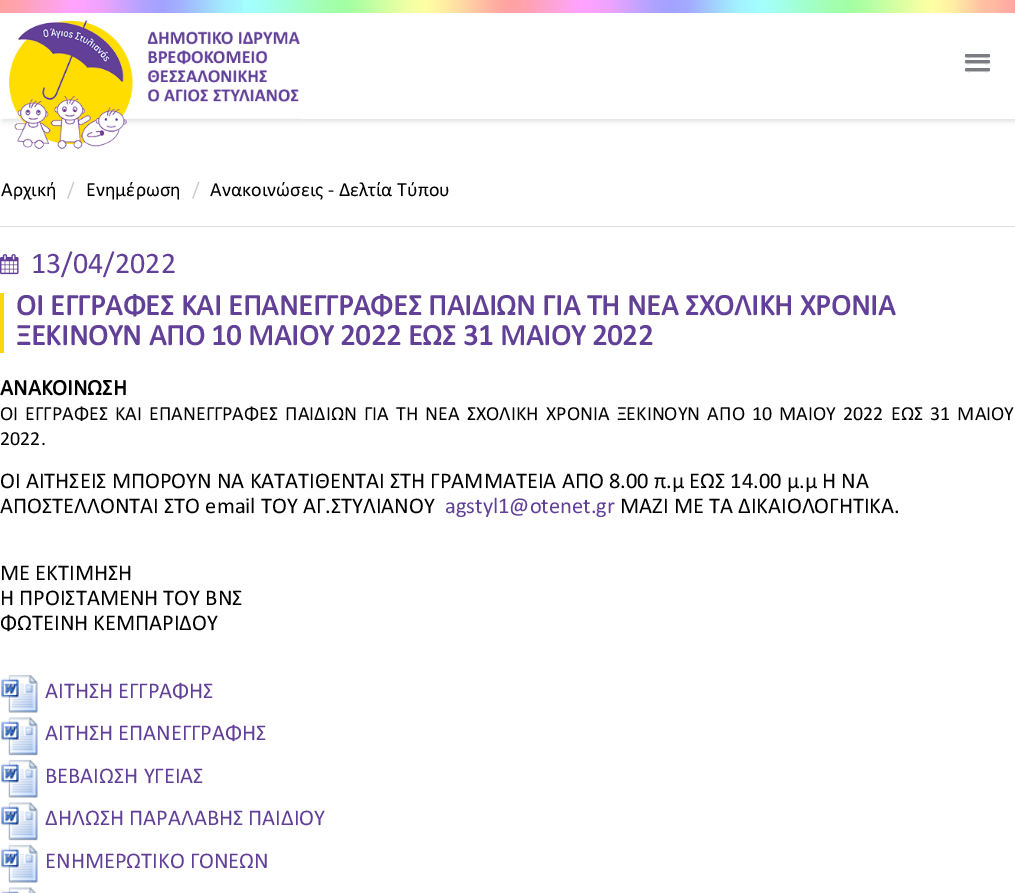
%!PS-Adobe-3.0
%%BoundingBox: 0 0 1015 893
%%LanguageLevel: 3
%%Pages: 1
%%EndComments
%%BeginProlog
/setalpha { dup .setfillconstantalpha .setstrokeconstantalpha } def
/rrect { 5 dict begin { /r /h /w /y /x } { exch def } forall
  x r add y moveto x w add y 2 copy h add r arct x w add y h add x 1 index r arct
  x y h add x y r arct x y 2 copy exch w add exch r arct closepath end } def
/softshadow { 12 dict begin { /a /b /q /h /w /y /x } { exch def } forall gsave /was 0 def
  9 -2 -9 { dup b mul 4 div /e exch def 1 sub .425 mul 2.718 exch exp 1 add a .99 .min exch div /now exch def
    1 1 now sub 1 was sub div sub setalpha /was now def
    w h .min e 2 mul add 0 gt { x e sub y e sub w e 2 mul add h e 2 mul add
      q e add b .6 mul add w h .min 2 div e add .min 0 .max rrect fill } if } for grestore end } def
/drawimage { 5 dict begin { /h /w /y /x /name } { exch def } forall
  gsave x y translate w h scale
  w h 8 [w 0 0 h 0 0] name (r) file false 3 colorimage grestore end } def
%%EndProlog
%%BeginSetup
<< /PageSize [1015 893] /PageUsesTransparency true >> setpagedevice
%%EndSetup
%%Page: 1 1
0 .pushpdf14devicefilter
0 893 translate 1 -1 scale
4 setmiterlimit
1 setgray
0 0 1015 893 rectfill
gsave
newpath 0 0 moveto 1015 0 lineto 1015 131 lineto 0 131 lineto closepath 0 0 moveto 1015 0 lineto 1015 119 lineto 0 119 lineto closepath eoclip newpath
0.867 setgray
3 3 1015 118 0 3 1 softshadow
grestore
gsave newpath 0 0 moveto 1015 0 lineto 1015 13 lineto 0 13 lineto closepath clip newpath
<< /ShadingType 2 /ColorSpace /DeviceRGB /Coords [0 6.3 1015 6.2] /Extend [true true] /Function << /FunctionType 3 /Domain [0 1] /Functions [<< /FunctionType 2 /Domain [0 1] /C0 [0.996 0.639 0.635] /C1 [1 0.639 0.69] /N 1 >> << /FunctionType 2 /Domain [0 1] /C0 [1 0.635 0.706] /C1 [0.996 0.639 0.761] /N 1 >> << /FunctionType 2 /Domain [0 1] /C0 [0.996 0.639 0.761] /C1 [1 0.639 0.933] /N 1 >> << /FunctionType 2 /Domain [0 1] /C0 [1 0.639 0.933] /C1 [1 0.639 0.996] /N 1 >> << /FunctionType 2 /Domain [0 1] /C0 [1 0.639 0.996] /C1 [0.988 0.639 1] /N 1 >> << /FunctionType 2 /Domain [0 1] /C0 [0.988 0.639 1] /C1 [0.933 0.639 0.996] /N 1 >> << /FunctionType 2 /Domain [0 1] /C0 [0.933 0.639 0.996] /C1 [0.706 0.639 1] /N 1 >> << /FunctionType 2 /Domain [0 1] /C0 [0.706 0.639 1] /C1 [0.639 0.635 1] /N 1 >> << /FunctionType 2 /Domain [0 1] /C0 [0.639 0.635 1] /C1 [0.635 0.706 0.996] /N 1 >> << /FunctionType 2 /Domain [0 1] /C0 [0.635 0.706 0.996] /C1 [0.639 0.925 1] /N 1 >> << /FunctionType 2 /Domain [0 1] /C0 [0.639 0.925 1] /C1 [0.635 0.98 0.996] /N 1 >> << /FunctionType 2 /Domain [0 1] /C0 [0.643 1 1] /C1 [0.639 1 0.988] /N 1 >> << /FunctionType 2 /Domain [0 1] /C0 [0.639 1 0.988] /C1 [0.639 1 0.91] /N 1 >> << /FunctionType 2 /Domain [0 1] /C0 [0.639 1 0.91] /C1 [0.639 1 0.69] /N 1 >> << /FunctionType 2 /Domain [0 1] /C0 [0.639 1 0.69] /C1 [0.635 1 0.643] /N 1 >> << /FunctionType 2 /Domain [0 1] /C0 [0.635 1 0.643] /C1 [0.722 1 0.639] /N 1 >> << /FunctionType 2 /Domain [0 1] /C0 [0.722 1 0.639] /C1 [0.937 1 0.643] /N 1 >> << /FunctionType 2 /Domain [0 1] /C0 [0.937 1 0.643] /C1 [1 1 0.639] /N 1 >> << /FunctionType 2 /Domain [0 1] /C0 [1 1 0.639] /C1 [1 0.957 0.643] /N 1 >> << /FunctionType 2 /Domain [0 1] /C0 [1 0.957 0.643] /C1 [1 0.929 0.631] /N 1 >> << /FunctionType 2 /Domain [0 1] /C0 [1 0.922 0.643] /C1 [1 0.875 0.643] /N 1 >> << /FunctionType 2 /Domain [0 1] /C0 [1 0.875 0.643] /C1 [1 0.722 0.635] /N 1 >> << /FunctionType 2 /Domain [0 1] /C0 [1 0.722 0.635] /C1 [0.996 0.635 0.639] /N 1 >> << /FunctionType 2 /Domain [0 1] /C0 [0.996 0.635 0.639] /C1 [1 0.639 0.69] /N 1 >> << /FunctionType 2 /Domain [0 1] /C0 [1 0.635 0.706] /C1 [0.996 0.639 0.761] /N 1 >> << /FunctionType 2 /Domain [0 1] /C0 [0.996 0.639 0.761] /C1 [1 0.639 0.933] /N 1 >> << /FunctionType 2 /Domain [0 1] /C0 [1 0.639 0.933] /C1 [1 0.639 0.996] /N 1 >> << /FunctionType 2 /Domain [0 1] /C0 [1 0.639 0.996] /C1 [0.988 0.639 1] /N 1 >> << /FunctionType 2 /Domain [0 1] /C0 [0.988 0.639 1] /C1 [0.933 0.639 0.996] /N 1 >> << /FunctionType 2 /Domain [0 1] /C0 [0.933 0.639 0.996] /C1 [0.706 0.639 1] /N 1 >> << /FunctionType 2 /Domain [0 1] /C0 [0.706 0.639 1] /C1 [0.639 0.635 1] /N 1 >> << /FunctionType 2 /Domain [0 1] /C0 [0.639 0.635 1] /C1 [0.635 0.678 1] /N 1 >> << /FunctionType 2 /Domain [0 1] /C0 [0.635 0.678 1] /C1 [0.639 0.737 0.996] /N 1 >> << /FunctionType 2 /Domain [0 1] /C0 [0.639 0.737 0.996] /C1 [0.635 0.914 1] /N 1 >> << /FunctionType 2 /Domain [0 1] /C0 [0.635 0.914 1] /C1 [0.643 0.957 1] /N 1 >> << /FunctionType 2 /Domain [0 1] /C0 [0.635 0.957 1] /C1 [0.643 0.976 1] /N 1 >> << /FunctionType 2 /Domain [0 1] /C0 [0.643 0.976 1] /C1 [0.639 1 0.996] /N 1 >> << /FunctionType 2 /Domain [0 1] /C0 [0.639 1 0.996] /C1 [0.639 1 0.91] /N 1 >> << /FunctionType 2 /Domain [0 1] /C0 [0.639 1 0.91] /C1 [0.635 1 0.686] /N 1 >> << /FunctionType 2 /Domain [0 1] /C0 [0.635 1 0.686] /C1 [0.643 1 0.635] /N 1 >> << /FunctionType 2 /Domain [0 1] /C0 [0.643 1 0.635] /C1 [0.729 1 0.643] /N 1 >> << /FunctionType 2 /Domain [0 1] /C0 [0.729 1 0.643] /C1 [0.918 1 0.635] /N 1 >> << /FunctionType 2 /Domain [0 1] /C0 [0.937 1 0.643] /C1 [1 1 0.639] /N 1 >> << /FunctionType 2 /Domain [0 1] /C0 [1 1 0.639] /C1 [1 0.929 0.639] /N 1 >> << /FunctionType 2 /Domain [0 1] /C0 [1 0.929 0.639] /C1 [1 0.741 0.639] /N 1 >> << /FunctionType 2 /Domain [0 1] /C0 [1 0.741 0.639] /C1 [1 0.737 0.635] /N 1 >> << /FunctionType 2 /Domain [0 1] /C0 [1 0.722 0.635] /C1 [1 0.647 0.643] /N 1 >>] /Bounds [0.02 0.03 0.06 0.07 0.08 0.1 0.14 0.16 0.18 0.22 0.24 0.25 0.27 0.32 0.34 0.36 0.4 0.42 0.43 0.44 0.45 0.48 0.5 0.52 0.53 0.56 0.57 0.58 0.6 0.64 0.66 0.68 0.69 0.72 0.73 0.74 0.75 0.77 0.82 0.84 0.86 0.9 0.92 0.94 0.97 0.98] /Encode [0 1 0 1 0 1 0 1 0 1 0 1 0 1 0 1 0 1 0 1 0 1 0 1 0 1 0 1 0 1 0 1 0 1 0 1 0 1 0 1 0 1 0 1 0 1 0 1 0 1 0 1 0 1 0 1 0 1 0 1 0 1 0 1 0 1 0 1 0 1 0 1 0 1 0 1 0 1 0 1 0 1 0 1 0 1 0 1 0 1 0 1 0 1] >> >> shfill grestore
(images/1.raw) 9 20 291 129 drawimage
0.749 setgray
newpath 965 55.5 moveto 963.5 58.5 970 58 970 58 curveto 985 58 lineto 985 58 991.5 58.5 990 55.5 curveto 989 56 lineto 966 56 lineto closepath fill
0.475 0.486 0.502 setrgbcolor
965 54 25 3 1.5 rrect fill
0.749 setgray
newpath 965 62 moveto 964 64.5 969.5 64 970 64 curveto 985 64 lineto 985.5 64 991 64.5 990 62 curveto 989 62.5 lineto 966 62.5 lineto closepath fill
0.475 0.486 0.502 setrgbcolor
965 60 25 3 1.5 rrect fill
0.749 setgray
newpath 965.5 69.5 moveto 963 72.5 970 72 970 72 curveto 985 72 lineto 985 72 992 72.5 989.5 69.5 curveto 989 70.5 968.5 70 966 70 curveto closepath fill
0.475 0.486 0.502 setrgbcolor
965 68 25 3 1.5 rrect fill
0.867 setgray
0 226 1015 1 rectfill
(images/2.raw) 0 254 19 21 drawimage
0.973 0.843 0.047 setrgbcolor
0 293 4 60 rectfill
(images/3.raw) 1 674 37 39 drawimage
(images/4.raw) 1 717 37 39 drawimage
(images/3.raw) 1 759 37 39 drawimage
(images/4.raw) 1 802 37 39 drawimage
(images/3.raw) 1 844 37 39 drawimage
(images/5.raw) 1 887 36 6 drawimage
/Calibri-Regular [20 0 0 -20 0 0] selectfont
0 setgray
1 196 moveto (Αρχική) show
0.8 setgray
67 196 moveto (/) show
0 setgray
86 196 moveto (Ενημέρωση) show
0.8 setgray
192 196 moveto (/) show
0 setgray
210 196 moveto (Ανακοινώσεις - Δελτία Τύπου) show
/Calibri-Regular [30 0 0 -30 0 0] selectfont
0.384 0.251 0.596 setrgbcolor
31 273 moveto (13/04/2022) show
/Calibri-Bold [30 0 0 -30 0 0] selectfont
16 315 moveto (ΟΙ ΕΓΓΡΑΦΕΣ ΚΑΙ ΕΠΑΝΕΓΓΡΑΦΕΣ ΠΑΙΔΙΩΝ ΓΙΑ ΤΗ ΝΕΑ ΣΧΟΛΙΚΗ ΧΡΟΝΙΑ) show
16 345 moveto (ΞΕΚΙΝΟΥΝ ΑΠΟ 10 ΜΑΙΟΥ 2022 ΕΩΣ 31 ΜΑΙΟΥ 2022) show
/Calibri-Bold [22.5 0 0 -22.5 0 0] selectfont
0 setgray
0 395 moveto (ΑΝΑΚΟΙΝΩΣΗ) show
/Calibri-Regular [20 0 0 -20 0 0] selectfont
0 420 moveto 2.6 0 32 (ΟΙ ΕΓΓΡΑΦΕΣ ΚΑΙ ΕΠΑΝΕΓΓΡΑΦΕΣ ΠΑΙΔΙΩΝ ΓΙΑ ΤΗ ΝΕΑ ΣΧΟΛΙΚΗ ΧΡΟΝΙΑ ΞΕΚΙΝΟΥΝ ΑΠΟ 10 ΜΑΙΟΥ 2022 ΕΩΣ 31 ΜΑΙΟΥ) widthshow
0 445 moveto (2022.) show
/Calibri-Regular [22.5 0 0 -22.5 0 0] selectfont
0 488 moveto (ΟΙ ΑΙΤΗΣΕΙΣ ΜΠΟΡΟΥΝ ΝΑ ΚΑΤΑΤΙΘΕΝΤΑΙ ΣΤΗ ΓΡΑΜΜΑΤΕΙΑ ΑΠΟ 8.00 π.μ ΕΩΣ 14.00 μ.μ Η ΝΑ) show
0 513 moveto (ΑΠΟΣΤΕΛΛΟΝΤΑΙ ΣΤΟ email TOY ΑΓ.ΣΤΥΛΙΑΝΟΥ) show
0.384 0.251 0.596 setrgbcolor
445 513 moveto (agstyl1@otenet.gr) show
0 setgray
620 513 moveto (ΜΑΖΙ ΜΕ ΤΑ ΔΙΚΑΙΟΛΟΓΗΤΙΚΑ.) show
0 580 moveto (ΜΕ ΕΚΤΙΜΗΣΗ) show
0 605 moveto (Η ΠΡΟΙΣΤΑΜΕΝΗ ΤΟΥ ΒΝΣ) show
0 630 moveto (ΦΩΤΕΙΝΗ ΚΕΜΠΑΡΙΔΟΥ) show
0.384 0.251 0.596 setrgbcolor
45 698 moveto (ΑΙΤΗΣΗ ΕΓΓΡΑΦΗΣ) show
45 740 moveto (ΑΙΤΗΣΗ ΕΠΑΝΕΓΓΡΑΦΗΣ) show
45 783 moveto (ΒΕΒΑΙΩΣΗ ΥΓΕΙΑΣ) show
45 825 moveto (ΔΗΛΩΣΗ ΠΑΡΑΛΑΒΗΣ ΠΑΙΔΙΟΥ) show
45 868 moveto (ΕΝΗΜΕΡΩΤΙΚΟ ΓΟΝΕΩΝ) show
.poppdf14devicefilter showpage
%%EOF
